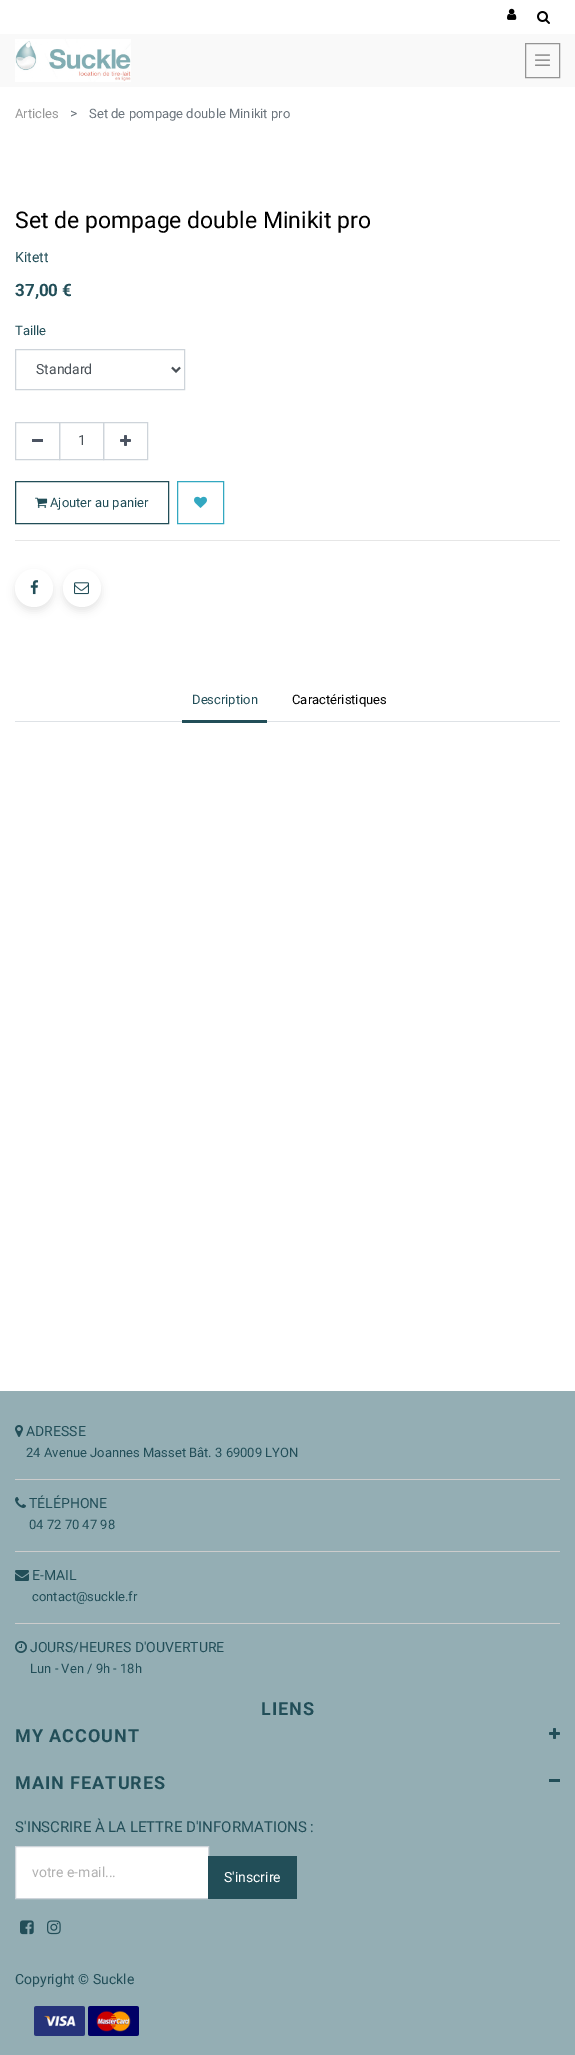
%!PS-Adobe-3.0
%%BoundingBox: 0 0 575 2055
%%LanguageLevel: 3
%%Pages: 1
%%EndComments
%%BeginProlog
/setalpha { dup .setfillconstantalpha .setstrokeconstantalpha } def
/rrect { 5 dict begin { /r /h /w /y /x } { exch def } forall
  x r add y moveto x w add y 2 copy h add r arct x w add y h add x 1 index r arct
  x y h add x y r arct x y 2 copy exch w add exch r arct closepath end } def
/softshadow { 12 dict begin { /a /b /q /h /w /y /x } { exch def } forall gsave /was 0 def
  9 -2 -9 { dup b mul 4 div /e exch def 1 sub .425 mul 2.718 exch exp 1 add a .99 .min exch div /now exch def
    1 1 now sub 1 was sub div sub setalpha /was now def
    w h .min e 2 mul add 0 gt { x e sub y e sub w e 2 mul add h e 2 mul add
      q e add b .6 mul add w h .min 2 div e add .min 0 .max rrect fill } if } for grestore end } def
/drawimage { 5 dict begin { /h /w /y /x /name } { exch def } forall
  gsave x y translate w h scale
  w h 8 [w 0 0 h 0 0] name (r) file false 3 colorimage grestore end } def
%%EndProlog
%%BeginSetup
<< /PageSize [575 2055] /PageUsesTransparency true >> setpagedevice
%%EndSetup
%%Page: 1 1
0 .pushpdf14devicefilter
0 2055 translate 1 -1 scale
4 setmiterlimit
1 setgray
0 0 575 2055 rectfill
(images/1.raw) 507 8 10 12 drawimage
(images/2.raw) 537 11 13 13 drawimage
0.976 setgray
0 34 575 53 rectfill
(images/3.raw) 15 39 116 43 drawimage
0.584 setgray
525.5 43.5 34 34 rectstroke
(images/4.raw) 535 54 15 12 drawimage
0.808 0.831 0.855 setrgbcolor
15.5 349.5 169 40 rectstroke
0.286 0.314 0.341 setrgbcolor
2 setlinewidth
newpath 172 367.5 moveto 176 371.5 lineto 180 367.5 lineto stroke
0.808 0.831 0.855 setrgbcolor
1 setlinewidth
15.5 422.5 44 37 rectstroke
0.298 0.329 0.384 setrgbcolor
32 439 11 3 rectfill
0.808 0.831 0.855 setrgbcolor
59.5 422.5 44 37 rectstroke
103.5 422.5 44 37 rectstroke
(images/5.raw) 120 435 11 11 drawimage
0.133 0.306 0.345 setrgbcolor
15.5 481.5 153 42 rectstroke
(images/6.raw) 35 497 13 11 drawimage
0.2 0.659 0.757 setrgbcolor
177.5 481.5 46 42 rectstroke
(images/7.raw) 194 496 13 12 drawimage
0.902 setgray
15 540 545 1 rectfill
0 setgray
15 573 38 38 19 4 0.1 softshadow
1 setgray
newpath 34 588 19 0 360 arc closepath fill
(images/8.raw) 30 580 9 15 drawimage
0 setgray
63 573 38 38 19 4 0.1 softshadow
1 setgray
newpath 82 588 19 0 360 arc closepath fill
(images/9.raw) 74 582 15 13 drawimage
0.871 0.886 0.902 setrgbcolor
15 721 545 1 rectfill
0.133 0.306 0.345 setrgbcolor
182 720 85 3 rectfill
0.58 0.682 0.706 setrgbcolor
0 1391 575 664 rectfill
(images/10.raw) 15 1425 8 12 drawimage
0.8 setgray
15 1479 545 1 rectfill
(images/11.raw) 15 1497 11 11 drawimage
15 1551 545 1 rectfill
(images/12.raw) 15 1570 14 11 drawimage
15 1623 545 1 rectfill
(images/13.raw) 15 1641 12 12 drawimage
(images/14.raw) 549 1728 11 11 drawimage
0.133 0.306 0.345 setrgbcolor
549 1779 11 3 rectfill
1 setgray
newpath 15.5 1846.5 moveto 208.5 1846.5 lineto 208.5 1898.5 lineto 15.5 1898.5 lineto closepath gsave fill grestore
0.808 0.831 0.855 setrgbcolor
stroke
0.133 0.306 0.345 setrgbcolor
208 1856 89 43 rectfill
(images/15.raw) 20 1920 14 15 drawimage
(images/16.raw) 47 1920 14 15 drawimage
(images/17.raw) 34 2006 51 30 drawimage
(images/18.raw) 88 2006 51 30 drawimage
/Roboto-Regular [13 0 0 -13 0 0] selectfont
0.588 setgray
15 118 moveto (Articles) show
/Roboto-Regular [14 0 0 -14 0 0] selectfont
0.424 0.459 0.49 setrgbcolor
70 118 moveto (>) show
/Roboto-Regular [13 0 0 -13 0 0] selectfont
89 118 moveto (Set de pompage double Minikit pro) show
/Roboto-Regular [23 0 0 -23 0 0] selectfont
0 setgray
15 228 moveto (Set de pompage double Minikit pro) show
/Roboto-Regular [14 0 0 -14 0 0] selectfont
0.133 0.306 0.345 setrgbcolor
15 262 moveto (Kitett) show
/Roboto-Bold [17 0 0 -17 0 0] selectfont
15 296 moveto (37,00 €) show
/Roboto-Regular [13 0 0 -13 0 0] selectfont
15 335 moveto (Taille) show
/Roboto-Regular [14 0 0 -14 0 0] selectfont
0.286 0.314 0.341 setrgbcolor
36 374 moveto (Standard) show
78 445 moveto (1) show
/Roboto-Regular [13 0 0 -13 0 0] selectfont
0.133 0.306 0.345 setrgbcolor
50 507 moveto (Ajouter au panier) show
192 704 moveto (Description) show
0 setgray
292 704 moveto (Caractéristiques) show
/Roboto-Regular [14 0 0 -14 0 0] selectfont
0.133 0.306 0.345 setrgbcolor
26 1436 moveto (ADRESSE) show
/Roboto-Regular [13 0 0 -13 0 0] selectfont
26 1457 moveto (24 Avenue Joannes Masset Bât. 3 69009 LYON) show
/Roboto-Regular [14 0 0 -14 0 0] selectfont
29 1508 moveto (TÉLÉPHONE) show
/Roboto-Regular [13 0 0 -13 0 0] selectfont
29 1529 moveto (04 72 70 47 98) show
/Roboto-Regular [14 0 0 -14 0 0] selectfont
32 1580 moveto (E-MAIL) show
/Roboto-Regular [13 0 0 -13 0 0] selectfont
32 1601 moveto (contact@suckle.fr) show
/Roboto-Regular [14 0 0 -14 0 0] selectfont
30 1652 moveto (JOURS/HEURES D'OUVERTURE) show
/Roboto-Regular [13 0 0 -13 0 0] selectfont
30 1673 moveto (Lun - Ven / 9h - 18h) show
/Roboto-Bold [18 0 0 -18 0 0] selectfont
261 1715 moveto 1 0 (LIENS) ashow
15 1742 moveto 1 0 (MY ACCOUNT) ashow
15 1789 moveto 1 0 (MAIN FEATURES) ashow
/Roboto-Regular [15 0 0 -15 0 0] selectfont
15 1832 moveto (S'INSCRIRE À LA LETTRE D'INFORMATIONS :) show
/Roboto-Regular [14 0 0 -14 0 0] selectfont
0.694 setgray
32 1877 moveto (votre e-mail...) show
1 setgray
224 1882 moveto (S'inscrire) show
0.133 0.306 0.345 setrgbcolor
15 1984 moveto (Copyright © Suckle) show
.poppdf14devicefilter showpage
%%EOF
